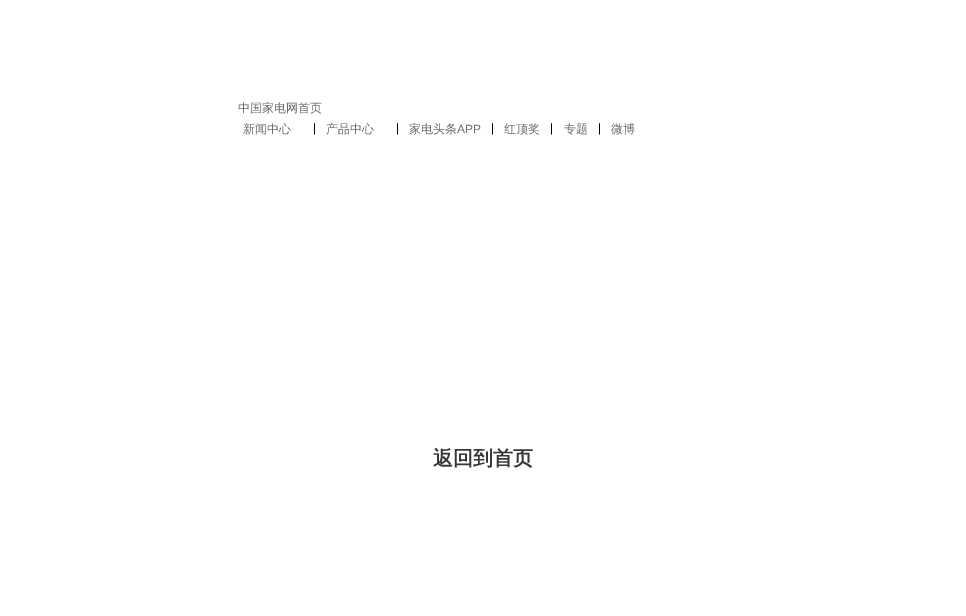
%!PS-Adobe-3.0
%%BoundingBox: 0 0 966 616
%%LanguageLevel: 3
%%Pages: 1
%%EndComments
%%BeginProlog
%%EndProlog
%%BeginSetup
<< /PageSize [966 616] >> setpagedevice
%%EndSetup
%%Page: 1 1
0 616 translate 1 -1 scale
4 setmiterlimit
1 setgray
0 0 966 616 rectfill
/WenQuanYiZenHei-Medium [12 0 0 -12 0 0] selectfont
0.42 setgray
238 112 moveto (中国家电网首页) show
243 133 moveto (新闻中心) show
/LiberationSans-Regular [12 0 0 -12 0 0] selectfont
0 setgray
313 132 moveto (|) show
/WenQuanYiZenHei-Medium [12 0 0 -12 0 0] selectfont
0.42 setgray
326 133 moveto (产品中心) show
/LiberationSans-Regular [12 0 0 -12 0 0] selectfont
0 setgray
396 132 moveto (|) show
/WenQuanYiZenHei-Medium [12 0 0 -12 0 0] selectfont
0.42 setgray
409 133 moveto (家电头条) show
/LiberationSans-Regular [12 0 0 -12 0 0] selectfont
457 133 moveto (APP) show
0 setgray
491 132 moveto (|) show
/WenQuanYiZenHei-Medium [12 0 0 -12 0 0] selectfont
0.42 setgray
504 133 moveto (红顶奖) show
/LiberationSans-Regular [12 0 0 -12 0 0] selectfont
0 setgray
550 132 moveto (|) show
/WenQuanYiZenHei-Medium [12 0 0 -12 0 0] selectfont
0.42 setgray
564 133 moveto (专题) show
/LiberationSans-Regular [12 0 0 -12 0 0] selectfont
0 setgray
598 132 moveto (|) show
/WenQuanYiZenHei-Medium [12 0 0 -12 0 0] selectfont
0.42 setgray
611 133 moveto (微博) show
/WenQuanYiZenHei-Bold [20 0 0 -20 0 0] selectfont
0.212 0.216 0.224 setrgbcolor
433 465 moveto (返回到首页) show
showpage
%%EOF
